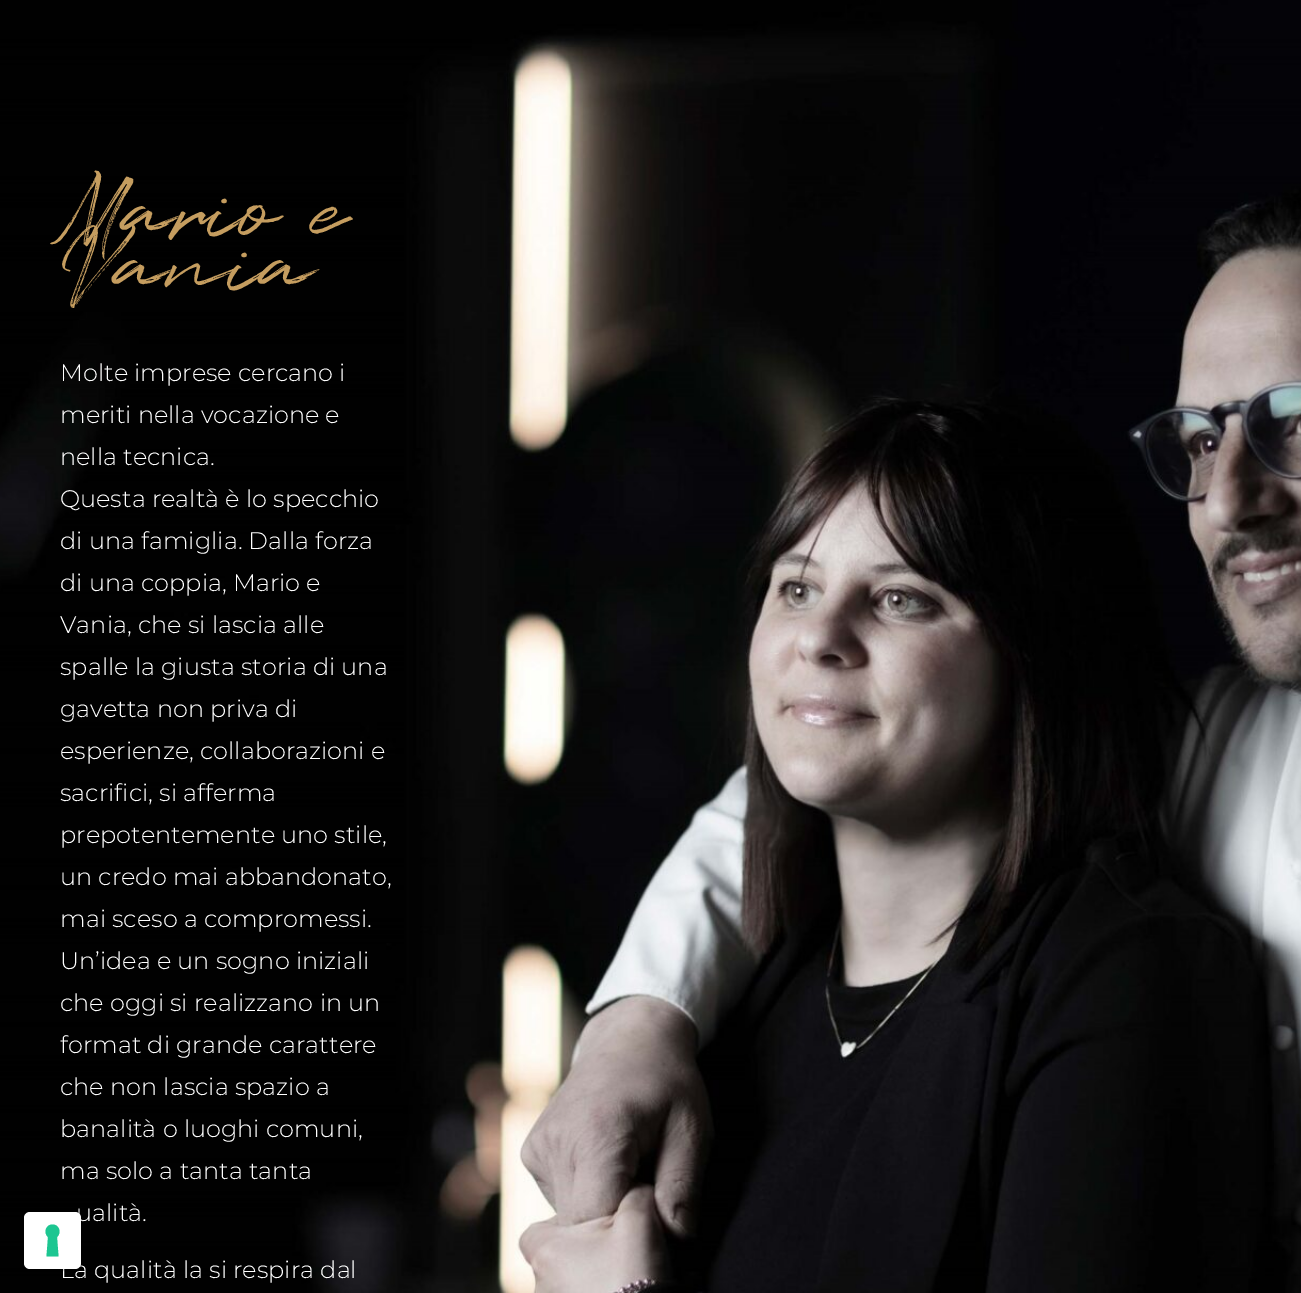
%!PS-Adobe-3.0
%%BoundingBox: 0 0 1301 1293
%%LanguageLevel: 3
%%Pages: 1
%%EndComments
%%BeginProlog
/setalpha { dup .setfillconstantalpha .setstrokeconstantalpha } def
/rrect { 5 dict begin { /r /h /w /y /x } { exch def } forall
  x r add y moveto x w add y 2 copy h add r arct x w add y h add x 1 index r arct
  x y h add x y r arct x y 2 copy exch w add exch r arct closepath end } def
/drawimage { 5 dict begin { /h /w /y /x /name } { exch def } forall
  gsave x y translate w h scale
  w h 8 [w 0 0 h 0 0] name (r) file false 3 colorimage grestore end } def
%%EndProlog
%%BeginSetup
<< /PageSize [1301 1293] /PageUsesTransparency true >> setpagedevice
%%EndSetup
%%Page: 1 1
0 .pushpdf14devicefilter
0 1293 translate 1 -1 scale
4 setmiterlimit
1 setgray
0 0 1301 1293 rectfill
(images/1.raw) 0 0 1301 1293 drawimage
/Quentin-Regular [90 0 0 -90 0 0] selectfont
0.773 0.616 0.373 setrgbcolor
60 237 moveto (Mario e) show
60 291 moveto (Vania) show
/Montserrat-Light [24 0 0 -24 0 0] selectfont
1 setgray
60 381 moveto (Molte imprese cercano i) show
60 423 moveto (meriti nella vocazione e) show
60 465 moveto (nella tecnica.) show
60 507 moveto (Questa realtà è lo specchio) show
60 549 moveto (di una famiglia. Dalla forza) show
60 591 moveto (di una coppia, Mario e) show
60 633 moveto (Vania, che si lascia alle) show
60 675 moveto (spalle la giusta storia di una) show
60 717 moveto (gavetta non priva di) show
60 759 moveto (esperienze, collaborazioni e) show
60 801 moveto (sacrifici, si afferma) show
60 843 moveto (prepotentemente uno stile,) show
60 885 moveto (un credo mai abbandonato,) show
60 927 moveto (mai sceso a compromessi.) show
60 969 moveto (Un’idea e un sogno iniziali) show
60 1011 moveto (che oggi si realizzano in un) show
60 1053 moveto (format di grande carattere) show
60 1095 moveto (che non lascia spazio a) show
60 1137 moveto (banalità o luoghi comuni,) show
60 1179 moveto (ma solo a tanta tanta) show
76 1221 moveto (ualità.) show
60 1278 moveto (La qualità la si respira dal) show
0.15 setalpha
0 setgray
2 setlinewidth
24 1212 58 58 7 rrect stroke
1 setalpha
1 setgray
24 1212 57 57 6 rrect fill
0.11 0.776 0.569 setrgbcolor
newpath 52.5 1224.5 moveto 59 1224.5 62 1232.5 57 1237 curveto 58.5 1256.5 lineto 46.5 1256.5 lineto 48 1237 lineto 43 1232.5 46 1224.5 52.5 1224.5 curveto closepath eofill
.poppdf14devicefilter showpage
%%EOF
